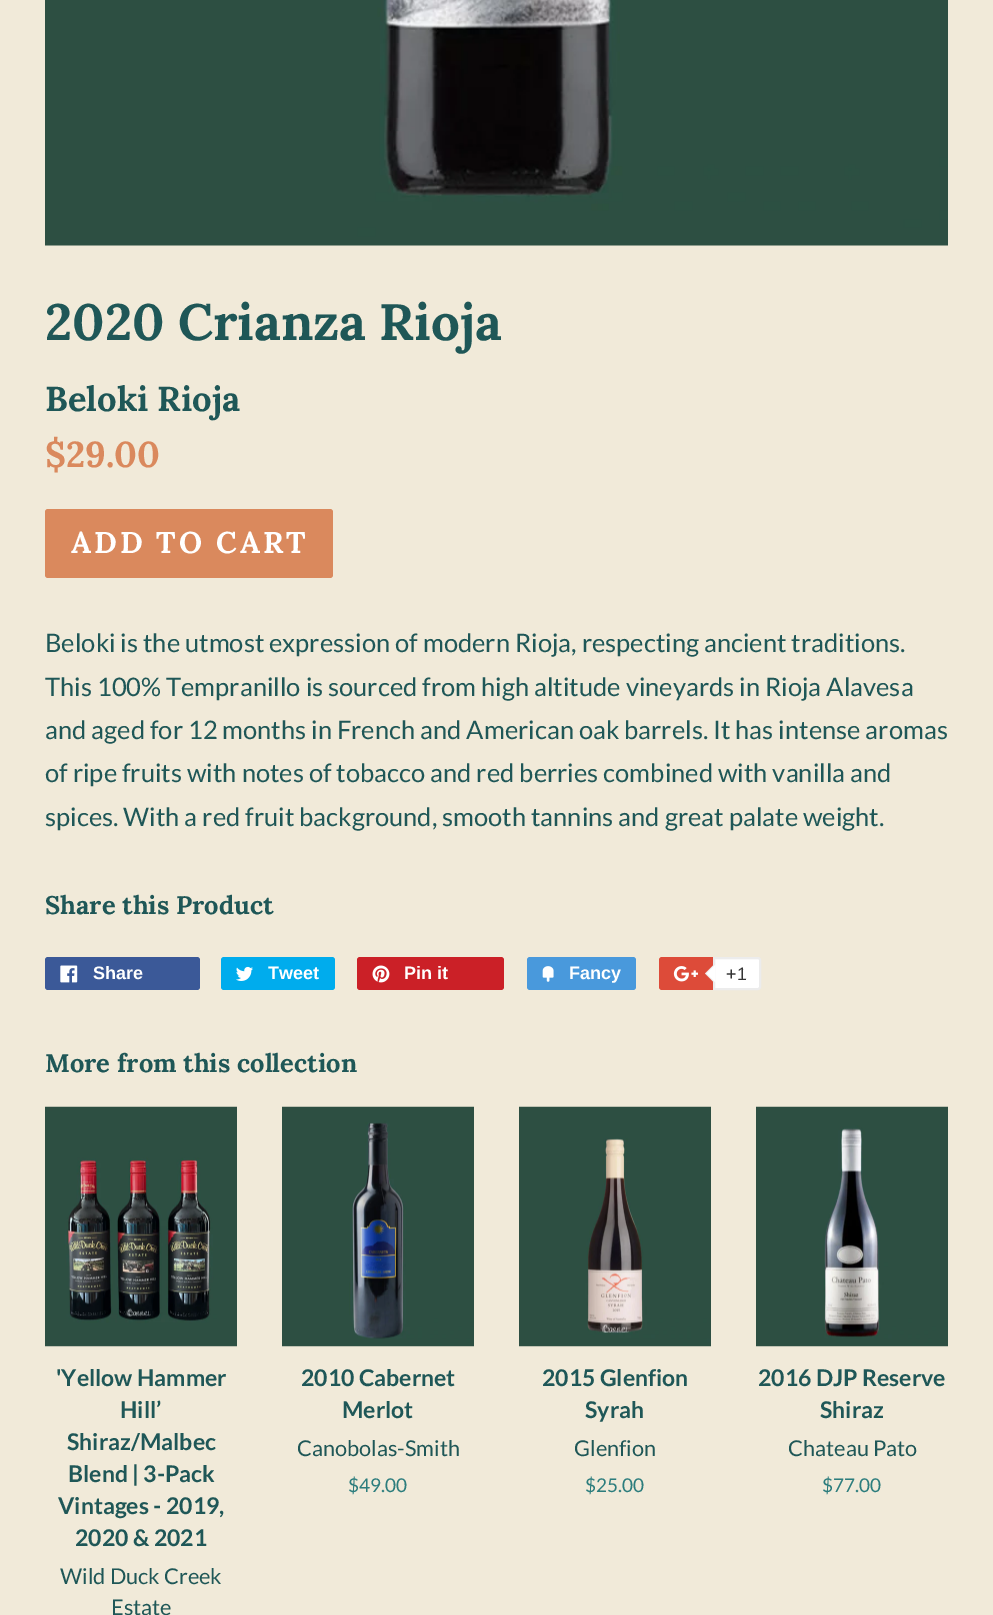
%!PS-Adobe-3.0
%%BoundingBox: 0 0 993 1615
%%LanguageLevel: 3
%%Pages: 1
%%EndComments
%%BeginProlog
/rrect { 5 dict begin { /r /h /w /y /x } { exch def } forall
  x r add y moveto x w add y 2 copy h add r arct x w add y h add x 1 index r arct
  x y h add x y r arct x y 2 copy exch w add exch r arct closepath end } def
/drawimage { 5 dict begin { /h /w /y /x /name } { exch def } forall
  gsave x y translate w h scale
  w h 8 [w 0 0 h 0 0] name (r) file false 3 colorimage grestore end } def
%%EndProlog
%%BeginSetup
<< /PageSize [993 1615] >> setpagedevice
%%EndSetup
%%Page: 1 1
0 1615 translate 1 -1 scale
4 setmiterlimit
0.945 0.918 0.851 setrgbcolor
0 0 993 1615 rectfill
(images/1.raw) 45 0 903 246 drawimage
0.855 0.537 0.365 setrgbcolor
45 509 288 69 3 rrect fill
0.231 0.349 0.596 setrgbcolor
45 957 155 33 3 rrect fill
(images/2.raw) 60 965 18 18 drawimage
0 0.675 0.929 setrgbcolor
221 957 114 33 3 rrect fill
(images/3.raw) 236 966 17 15 drawimage
0.796 0.125 0.153 setrgbcolor
357 957 147 33 3 rrect fill
(images/4.raw) 372 965 18 18 drawimage
0.286 0.6 0.863 setrgbcolor
527 957 109 33 3 rrect fill
(images/5.raw) 542 966 12 16 drawimage
0.867 0.294 0.224 setrgbcolor
659 957 99 33 3 rrect fill
(images/6.raw) 673 966 25 16 drawimage
1 setgray
newpath 714 958 moveto 758 958 lineto 759 958 760 959 760 960 curveto 760 987 lineto 760 988 759 989 758 989 curveto 714 989 lineto closepath gsave fill grestore
0.925 setgray
2 setlinewidth
stroke
newpath 714 964.5 moveto 714 982.5 lineto 705 973.5 lineto closepath fill
1 setgray
newpath 715.5 964.5 moveto 715.5 982.5 lineto 706.5 973.5 lineto closepath fill
(images/7.raw) 45 1106 192 241 drawimage
(images/8.raw) 282 1106 192 241 drawimage
(images/9.raw) 519 1106 192 241 drawimage
(images/10.raw) 756 1106 192 241 drawimage
/Lora-Bold [51 0 0 -51 0 0] selectfont
0.122 0.341 0.341 setrgbcolor
45 340 moveto (2020 Crianza Rioja) show
/Lora-Bold [34.5 0 0 -34.5 0 0] selectfont
45 411 moveto (Beloki Rioja) show
/Lora-Bold [36 0 0 -36 0 0] selectfont
0.855 0.537 0.365 setrgbcolor
45 467 moveto ($29.00) show
/Lora-Bold [30 0 0 -30 0 0] selectfont
1 setgray
71 553 moveto 3 0 (ADD TO CART) ashow
/Lato-Regular [25.5 0 0 -25.5 0 0] selectfont
0.122 0.341 0.341 setrgbcolor
45 652 moveto (Beloki is the utmost expression of modern Rioja, respecting ancient traditions.) show
45 696 moveto (This 100% Tempranillo is sourced from high altitude vineyards in Rioja Alavesa) show
45 739 moveto (and aged for 12 months in French and American oak barrels. It has intense aromas) show
45 782 moveto (of ripe fruits with notes of tobacco and red berries combined with vanilla and) show
45 826 moveto (spices. With a red fruit background, smooth tannins and great palate weight.) show
/Lora-Bold [25.5 0 0 -25.5 0 0] selectfont
45 914 moveto (Share this Product) show
/LiberationSans-Bold [18 0 0 -18 0 0] selectfont
1 setgray
93 979 moveto (Share) show
268 979 moveto (Tweet) show
404 979 moveto (Pin it) show
569 979 moveto (Fancy) show
/LiberationSans-Regular [18 0 0 -18 0 0] selectfont
0.2 setgray
726 980 moveto (+1) show
/Lora-Bold [25.5 0 0 -25.5 0 0] selectfont
0.122 0.341 0.341 setrgbcolor
45 1072 moveto (More from this collection) show
/Lato-Bold [23 0 0 -23 0 0] selectfont
56 1386 moveto ('Yellow Hammer) show
120 1418 moveto (Hill’) show
67 1450 moveto (Shiraz/Malbec) show
68 1482 moveto (Blend | 3-Pack) show
58 1514 moveto (Vintages - 2019,) show
75 1546 moveto (2020 & 2021) show
/Lato-Regular [21.75 0 0 -21.75 0 0] selectfont
60 1584 moveto (Wild Duck Creek) show
111 1615 moveto (Estate) show
/Lato-Bold [23 0 0 -23 0 0] selectfont
301 1386 moveto (2010 Cabernet) show
342 1418 moveto (Merlot) show
/Lato-Regular [21.75 0 0 -21.75 0 0] selectfont
297 1456 moveto (Canobolas-Smith) show
/Lato-Regular [19 0 0 -19 0 0] selectfont
0.173 0.49 0.49 setrgbcolor
348 1492 moveto ($49.00) show
/Lato-Bold [23 0 0 -23 0 0] selectfont
0.122 0.341 0.341 setrgbcolor
542 1386 moveto (2015 Glenfion) show
585 1418 moveto (Syrah) show
/Lato-Regular [21.75 0 0 -21.75 0 0] selectfont
574 1456 moveto (Glenfion) show
/Lato-Regular [19 0 0 -19 0 0] selectfont
0.173 0.49 0.49 setrgbcolor
585 1492 moveto ($25.00) show
/Lato-Bold [23 0 0 -23 0 0] selectfont
0.122 0.341 0.341 setrgbcolor
758 1386 moveto (2016 DJP Reserve) show
820 1418 moveto (Shiraz) show
/Lato-Regular [21.75 0 0 -21.75 0 0] selectfont
788 1456 moveto (Chateau Pato) show
/Lato-Regular [19 0 0 -19 0 0] selectfont
0.173 0.49 0.49 setrgbcolor
822 1492 moveto ($77.00) show
showpage
%%EOF
